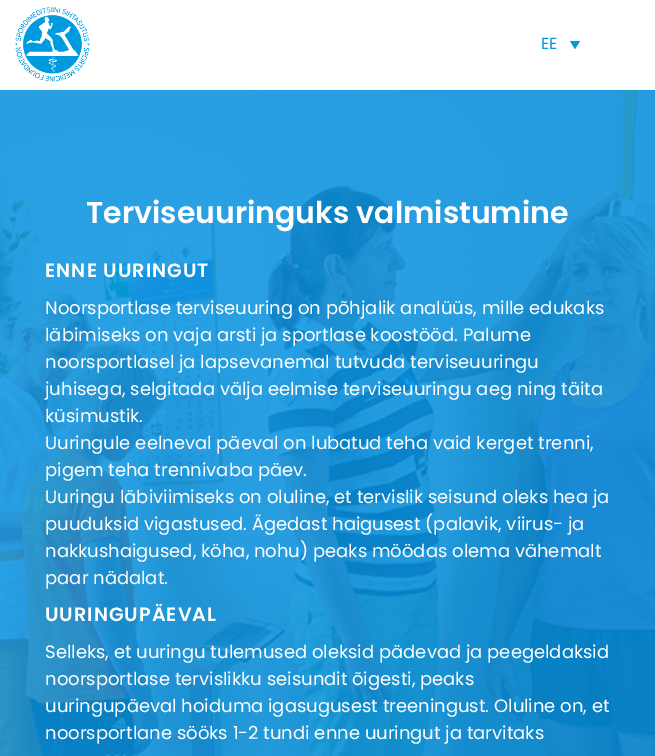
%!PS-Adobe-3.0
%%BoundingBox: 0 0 655 756
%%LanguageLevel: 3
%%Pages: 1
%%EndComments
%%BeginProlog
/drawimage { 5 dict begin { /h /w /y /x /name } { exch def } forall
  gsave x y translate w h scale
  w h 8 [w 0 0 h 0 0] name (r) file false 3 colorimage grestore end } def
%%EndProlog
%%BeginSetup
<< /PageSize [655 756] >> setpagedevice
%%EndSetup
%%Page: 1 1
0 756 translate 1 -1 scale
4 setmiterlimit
1 setgray
0 0 655 756 rectfill
(images/1.raw) 15 7 75 75 drawimage
0 0.608 0.875 setrgbcolor
newpath 570 41 moveto 580 41 lineto 575 49 lineto closepath fill
(images/2.raw) 0 90 655 666 drawimage
/Poppins-Regular [16 0 0 -16 0 0] selectfont
541 49 moveto (EE) show
/Poppins-SemiBold [30 0 0 -30 0 0] selectfont
1 setgray
86 223 moveto (Terviseuuringuks valmistumine) show
/Poppins-SemiBold [19.25 0 0 -19.25 0 0] selectfont
45 277 moveto 1 0 (ENNE UURINGUT) ashow
/Poppins-Regular [18 0 0 -18 0 0] selectfont
45 314 moveto (Noorsportlase terviseuuring on põhjalik analüüs, mille edukaks) show
45 341 moveto (läbimiseks on vaja arsti ja sportlase koostööd. Palume) show
45 368 moveto (noorsportlasel ja lapsevanemal tutvuda terviseuuringu) show
45 395 moveto (juhisega, selgitada välja eelmise terviseuuringu aeg ning täita) show
45 422 moveto (küsimustik.) show
45 449 moveto (Uuringule eelneval päeval on lubatud teha vaid kerget trenni,) show
45 476 moveto (pigem teha trennivaba päev.) show
45 503 moveto (Uuringu läbiviimiseks on oluline, et tervislik seisund oleks hea ja) show
45 530 moveto (puuduksid vigastused. Ägedast haigusest \(palavik, viirus- ja) show
45 557 moveto (nakkushaigused, köha, nohu\) peaks möödas olema vähemalt) show
45 584 moveto (paar nädalat.) show
/Poppins-SemiBold [19.25 0 0 -19.25 0 0] selectfont
45 621 moveto 1 0 (UURINGUPÄEVAL) ashow
/Poppins-Regular [18 0 0 -18 0 0] selectfont
45 658 moveto (Selleks, et uuringu tulemused oleksid pädevad ja peegeldaksid) show
45 685 moveto (noorsportlase tervislikku seisundit õigesti, peaks) show
45 712 moveto (uuringupäeval hoiduma igasugusest treeningust. Oluline on, et) show
45 739 moveto (noorsportlane sööks 1-2 tundi enne uuringut ja tarvitaks) show
showpage
%%EOF
